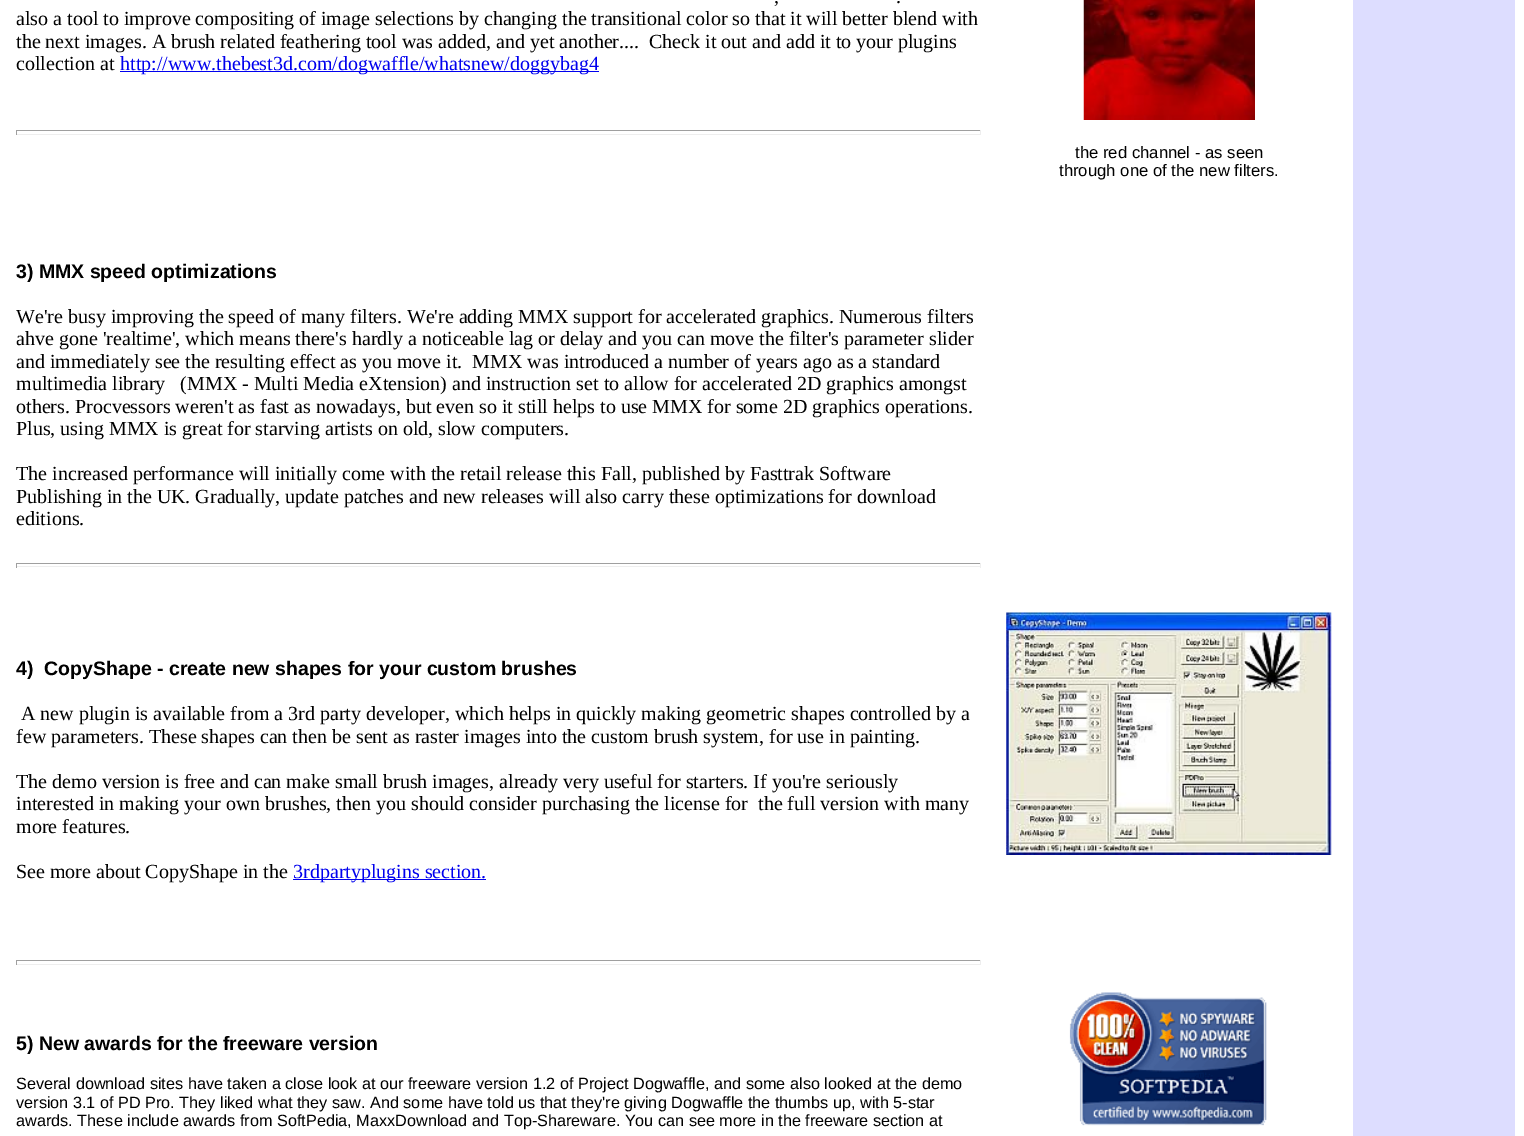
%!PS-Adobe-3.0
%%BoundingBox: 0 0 1524 1136
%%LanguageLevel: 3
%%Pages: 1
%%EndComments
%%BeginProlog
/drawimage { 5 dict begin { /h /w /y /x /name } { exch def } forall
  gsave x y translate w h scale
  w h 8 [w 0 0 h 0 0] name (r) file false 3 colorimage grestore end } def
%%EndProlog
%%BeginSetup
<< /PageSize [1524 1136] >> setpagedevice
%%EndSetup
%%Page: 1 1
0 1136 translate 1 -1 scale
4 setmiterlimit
1 setgray
0 0 1524 1136 rectfill
0 0 0.933 setrgbcolor
120 71 479 1 rectfill
0.624 setgray
16 130 965 1 rectfill
0.933 setgray
980 130 1 5 rectfill
16 134 965 1 rectfill
0.624 setgray
16 130 1 5 rectfill
(images/1.raw) 1083 0 172 120 drawimage
0.867 0.867 1 setrgbcolor
1353 0 162 1136 rectfill
0.624 setgray
16 563 965 1 rectfill
0.933 setgray
980 563 1 5 rectfill
16 566 965 1 rectfill
0.624 setgray
16 563 1 5 rectfill
0 0 0.933 setrgbcolor
293 879 193 1 rectfill
0.624 setgray
16 960 965 1 rectfill
0.933 setgray
980 960 1 5 rectfill
16 964 965 1 rectfill
0.624 setgray
16 960 1 5 rectfill
(images/2.raw) 1006 612 326 243 drawimage
(images/3.raw) 1069 992 198 134 drawimage
/LiberationSerif-Regular [20 0 0 -20 0 0] selectfont
0 setgray
774 3 moveto (,) show
896 3 moveto (.) show
16 25 moveto (also a tool to improve compositing of image selections by changing the transitional color so that it will better blend with) show
16 48 moveto (the next images. A brush related feathering tool was added, and yet another....  Check it out and add it to your plugins) show
16 70 moveto (collection at) show
0 0 0.933 setrgbcolor
120 70 moveto (http://www.thebest3d.com/dogwaffle/whatsnew/doggybag4) show
/LiberationSans-Regular [16.7 0 0 -16.7 0 0] selectfont
0 setgray
1075 158 moveto (the red channel - as seen) show
1059 176 moveto (through one of the new filters.) show
/LiberationSans-Bold [19.5 0 0 -19.5 0 0] selectfont
16 278 moveto (3\) MMX speed optimizations) show
/LiberationSerif-Regular [20 0 0 -20 0 0] selectfont
16 323 moveto (We're busy improving the speed of many filters. We're adding MMX support for accelerated graphics. Numerous filters) show
16 345 moveto (ahve gone 'realtime', which means there's hardly a noticeable lag or delay and you can move the filter's parameter slider) show
16 368 moveto (and immediately see the resulting effect as you move it.  MMX was introduced a number of years ago as a standard) show
16 390 moveto (multimedia library   \(MMX - Multi Media eXtension\) and instruction set to allow for accelerated 2D graphics amongst) show
16 413 moveto (others. Procvessors weren't as fast as nowadays, but even so it still helps to use MMX for some 2D graphics operations.) show
16 435 moveto (Plus, using MMX is great for starving artists on old, slow computers.) show
16 480 moveto (The increased performance will initially come with the retail release this Fall, published by Fasttrak Software) show
16 503 moveto (Publishing in the UK. Gradually, update patches and new releases will also carry these optimizations for download) show
16 525 moveto (editions.) show
/LiberationSans-Bold [19.5 0 0 -19.5 0 0] selectfont
16 675 moveto (4\)  CopyShape - create new shapes for your custom brushes) show
/LiberationSerif-Regular [20 0 0 -20 0 0] selectfont
21 720 moveto (A new plugin is available from a 3rd party developer, which helps in quickly making geometric shapes controlled by a) show
16 743 moveto (few parameters. These shapes can then be sent as raster images into the custom brush system, for use in painting.) show
16 788 moveto (The demo version is free and can make small brush images, already very useful for starters. If you're seriously) show
16 810 moveto (interested in making your own brushes, then you should consider purchasing the license for  the full version with many) show
16 833 moveto (more features.) show
16 878 moveto (See more about CopyShape in the) show
0 0 0.933 setrgbcolor
293 878 moveto (3rdpartyplugins section.) show
/LiberationSans-Bold [19.5 0 0 -19.5 0 0] selectfont
0 setgray
16 1050 moveto (5\) New awards for the freeware version) show
/LiberationSans-Regular [16.25 0 0 -16.25 0 0] selectfont
16 1089 moveto (Several download sites have taken a close look at our freeware version 1.2 of Project Dogwaffle, and some also looked at the demo) show
16 1108 moveto (version 3.1 of PD Pro. They liked what they saw. And some have told us that they're giving Dogwaffle the thumbs up, with 5-star) show
16 1126 moveto (awards. These include awards from SoftPedia, MaxxDownload and Top-Shareware. You can see more in the freeware section at) show
showpage
%%EOF
